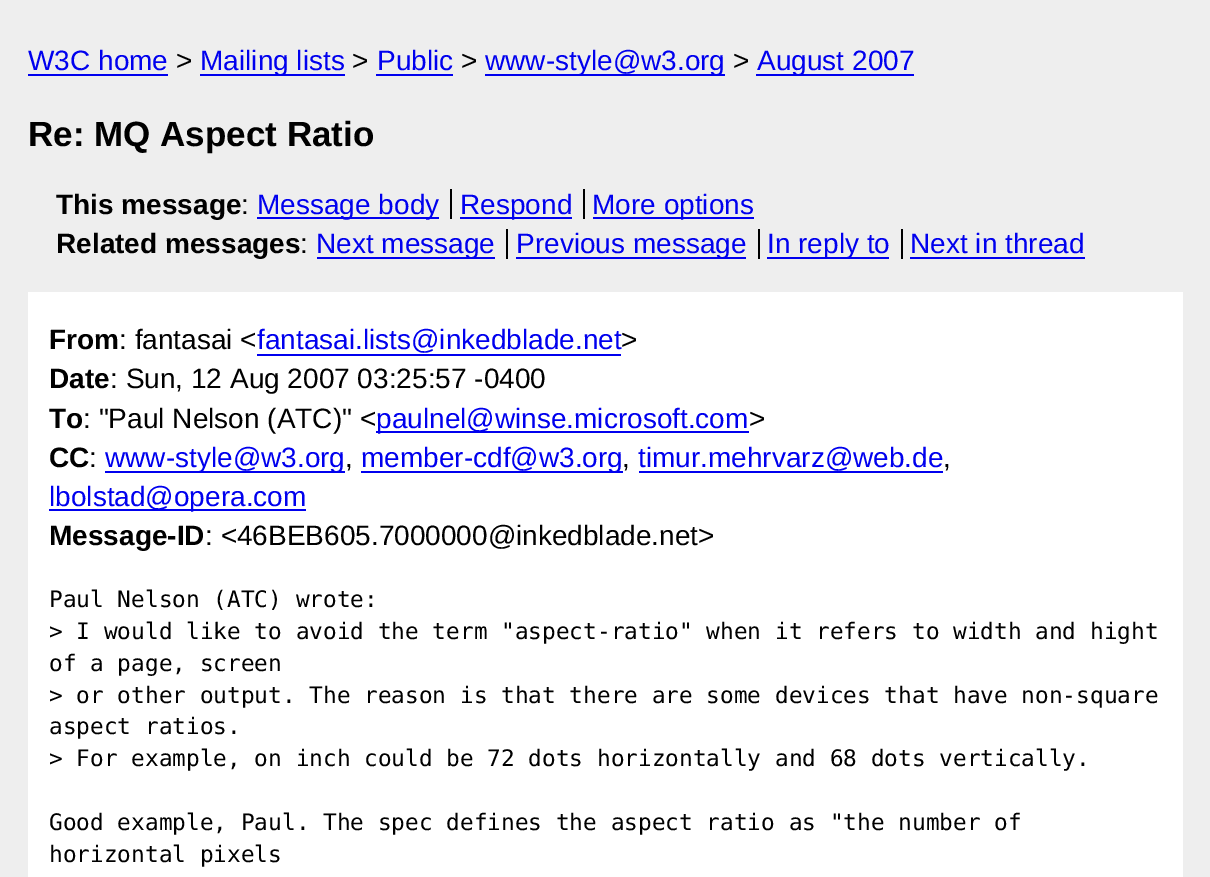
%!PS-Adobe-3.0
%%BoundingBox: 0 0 1210 877
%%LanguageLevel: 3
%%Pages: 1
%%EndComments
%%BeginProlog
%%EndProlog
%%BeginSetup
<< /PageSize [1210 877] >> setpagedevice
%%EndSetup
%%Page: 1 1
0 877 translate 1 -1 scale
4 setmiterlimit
0.933 setgray
0 0 1210 877 rectfill
0 0 0.933 setrgbcolor
28 74 140 2 rectfill
200 74 145 2 rectfill
376 74 77 2 rectfill
485 74 240 2 rectfill
756 74 158 2 rectfill
257 217 182 2 rectfill
0 setgray
450 189 2 30 rectfill
0 0 0.933 setrgbcolor
460 217 112 2 rectfill
0 setgray
583 189 2 30 rectfill
0 0 0.933 setrgbcolor
593 217 161 2 rectfill
317 257 178 2 rectfill
0 setgray
506 229 2 30 rectfill
0 0 0.933 setrgbcolor
516 257 230 2 rectfill
0 setgray
758 229 2 30 rectfill
0 0 0.933 setrgbcolor
767 257 122 2 rectfill
0 setgray
901 229 2 30 rectfill
0 0 0.933 setrgbcolor
910 257 175 2 rectfill
1 setgray
28 292 1155 585 rectfill
0 0 0.933 setrgbcolor
257 354 364 2 rectfill
376 431 373 2 rectfill
105 471 240 2 rectfill
361 471 262 2 rectfill
639 471 304 2 rectfill
49 509 257 2 rectfill
/LiberationSans-Regular [28 0 0 -28 0 0] selectfont
28 70 moveto (W3C home) show
0 setgray
176 70 moveto (>) show
0 0 0.933 setrgbcolor
200 70 moveto (Mailing lists) show
0 setgray
352 70 moveto (>) show
0 0 0.933 setrgbcolor
377 70 moveto (Public) show
0 setgray
461 70 moveto (>) show
0 0 0.933 setrgbcolor
485 70 moveto (www-style@w3.org) show
0 setgray
733 70 moveto (>) show
0 0 0.933 setrgbcolor
757 70 moveto (August 2007) show
/LiberationSans-Bold [35 0 0 -35 0 0] selectfont
0 setgray
28 146 moveto (Re: MQ Aspect Ratio) show
/LiberationSans-Bold [28 0 0 -28 0 0] selectfont
56 214 moveto (This message) show
/LiberationSans-Regular [28 0 0 -28 0 0] selectfont
241 214 moveto (:) show
0 0 0.933 setrgbcolor
257 214 moveto (Message body) show
460 214 moveto (Respond) show
592 214 moveto (More options) show
/LiberationSans-Bold [28 0 0 -28 0 0] selectfont
0 setgray
56 253 moveto (Related messages) show
/LiberationSans-Regular [28 0 0 -28 0 0] selectfont
300 253 moveto (:) show
0 0 0.933 setrgbcolor
316 253 moveto (Next message) show
516 253 moveto (Previous message) show
767 253 moveto (In reply to) show
910 253 moveto (Next in thread) show
/LiberationSans-Bold [28 0 0 -28 0 0] selectfont
0 setgray
49 349 moveto (From) show
/LiberationSans-Regular [28 0 0 -28 0 0] selectfont
119 349 moveto (: fantasai <) show
0 0 0.933 setrgbcolor
257 349 moveto (fantasai.lists@inkedblade.net) show
0 setgray
621 349 moveto (>) show
/LiberationSans-Bold [28 0 0 -28 0 0] selectfont
49 388 moveto (Date) show
/LiberationSans-Regular [28 0 0 -28 0 0] selectfont
110 388 moveto (: Sun, 12 Aug 2007 03:25:57 -0400) show
/LiberationSans-Bold [28 0 0 -28 0 0] selectfont
49 428 moveto (To) show
/LiberationSans-Regular [28 0 0 -28 0 0] selectfont
83 428 moveto (: "Paul Nelson \(ATC\)" <) show
0 0 0.933 setrgbcolor
376 428 moveto (paulnel@winse.microsoft.com) show
0 setgray
749 428 moveto (>) show
/LiberationSans-Bold [28 0 0 -28 0 0] selectfont
49 467 moveto (CC) show
/LiberationSans-Regular [28 0 0 -28 0 0] selectfont
89 467 moveto (:) show
0 0 0.933 setrgbcolor
105 467 moveto (www-style@w3.org) show
0 setgray
345 467 moveto (,) show
0 0 0.933 setrgbcolor
361 467 moveto (member-cdf@w3.org) show
0 setgray
622 467 moveto (,) show
0 0 0.933 setrgbcolor
638 467 moveto (timur.mehrvarz@web.de) show
0 setgray
943 467 moveto (,) show
0 0 0.933 setrgbcolor
49 506 moveto (lbolstad@opera.com) show
/LiberationSans-Bold [28 0 0 -28 0 0] selectfont
0 setgray
49 545 moveto (Message-ID) show
/LiberationSans-Regular [28 0 0 -28 0 0] selectfont
205 545 moveto (: <46BEB605.7000000@inkedblade.net>) show
/DejaVuSansMono-Regular [22.75 0 0 -22.75 0 0] selectfont
49 607 moveto (Paul Nelson \(ATC\) wrote:) show
49 639 moveto (> I would like to avoid the term "aspect-ratio" when it refers to width and hight) show
49 671 moveto (of a page, screen) show
49 703 moveto (> or other output. The reason is that there are some devices that have non-square) show
49 734 moveto (aspect ratios.) show
49 766 moveto (> For example, on inch could be 72 dots horizontally and 68 dots vertically.) show
49 830 moveto (Good example, Paul. The spec defines the aspect ratio as "the number of) show
49 862 moveto (horizontal pixels) show
showpage
%%EOF
